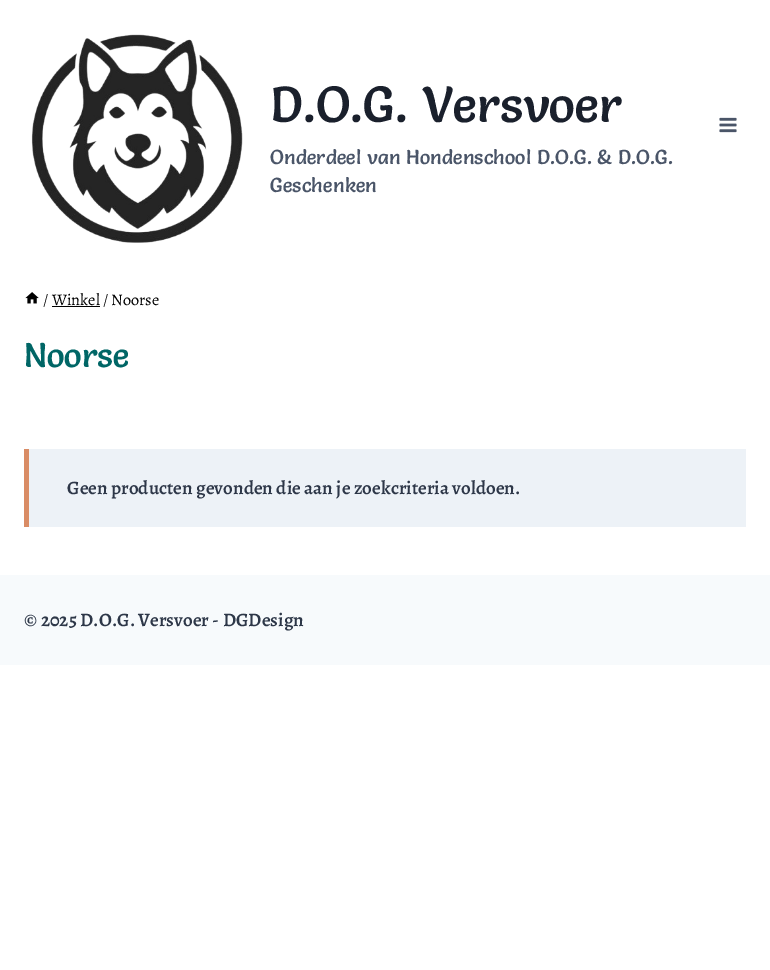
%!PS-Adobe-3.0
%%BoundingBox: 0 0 770 970
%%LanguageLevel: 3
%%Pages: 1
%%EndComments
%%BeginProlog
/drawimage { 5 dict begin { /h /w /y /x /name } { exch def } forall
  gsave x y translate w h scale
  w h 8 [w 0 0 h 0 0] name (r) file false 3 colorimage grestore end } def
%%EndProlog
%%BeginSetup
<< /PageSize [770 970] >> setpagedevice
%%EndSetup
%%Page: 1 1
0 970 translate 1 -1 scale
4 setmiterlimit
1 setgray
0 0 770 970 rectfill
(images/1.raw) 31 34 212 209 drawimage
(images/2.raw) 719 117 18 16 drawimage
(images/3.raw) 25 292 14 12 drawimage
0 setgray
52 306 48 1 rectfill
0.929 0.949 0.969 setrgbcolor
29 449 717 78 rectfill
0.851 0.549 0.396 setrgbcolor
24 449 5 78 rectfill
0.969 0.98 0.988 setrgbcolor
0 575 770 90 rectfill
/Salsa-Regular [50 0 0 -50 0 0] selectfont
0.102 0.125 0.173 setrgbcolor
270 122 moveto (D.O.G. Versvoer) show
/Salsa-Regular [20 0 0 -20 0 0] selectfont
0.29 0.333 0.408 setrgbcolor
270 164 moveto (Onderdeel van Hondenschool D.O.G. & D.O.G.) show
270 192 moveto (Geschenken) show
/Alegreya-Regular [16.25 0 0 -16.25 0 0] selectfont
0 setgray
43 305 moveto (/ Winkel / Noorse) show
/Salsa-Regular [34 0 0 -34 0 0] selectfont
0 0.4 0.4 setrgbcolor
24 367 moveto (Noorse) show
/Alegreya-SemiBold [19 0 0 -19 0 0] selectfont
0.176 0.216 0.282 setrgbcolor
67 494 moveto (Geen producten gevonden die aan je zoekcriteria voldoen.) show
24 626 moveto (© 2025 D.O.G. Versvoer - DGDesign) show
showpage
%%EOF
